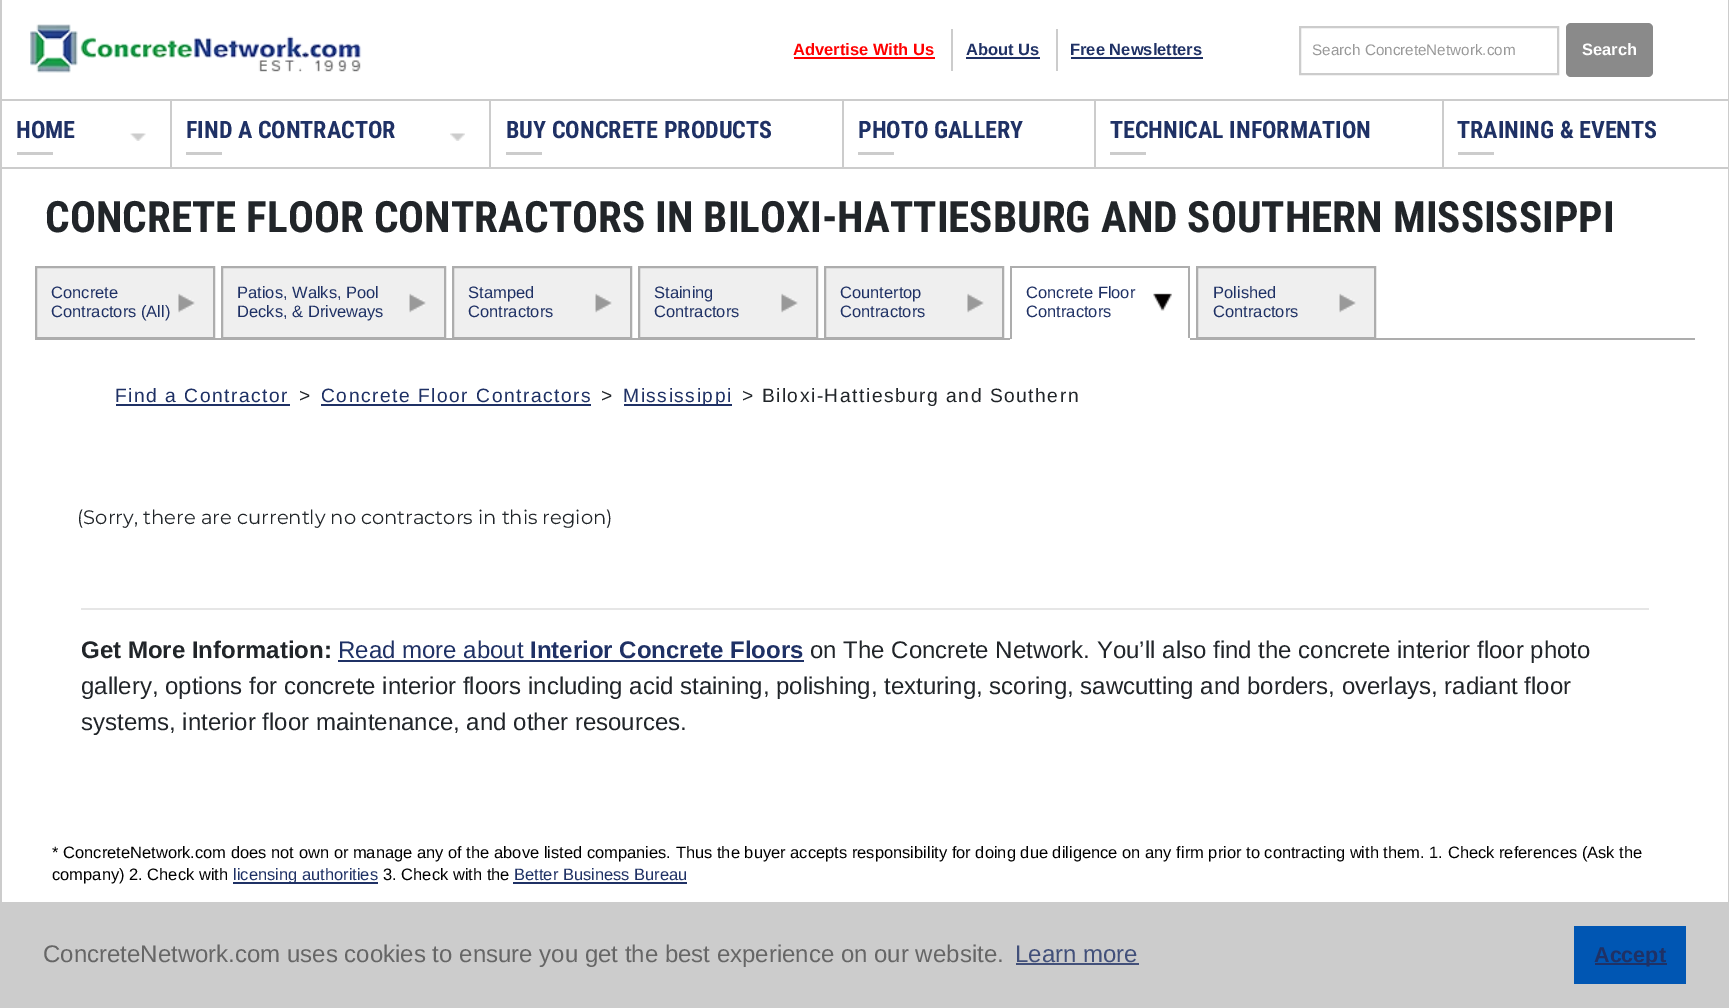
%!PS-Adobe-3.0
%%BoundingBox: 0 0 1729 1008
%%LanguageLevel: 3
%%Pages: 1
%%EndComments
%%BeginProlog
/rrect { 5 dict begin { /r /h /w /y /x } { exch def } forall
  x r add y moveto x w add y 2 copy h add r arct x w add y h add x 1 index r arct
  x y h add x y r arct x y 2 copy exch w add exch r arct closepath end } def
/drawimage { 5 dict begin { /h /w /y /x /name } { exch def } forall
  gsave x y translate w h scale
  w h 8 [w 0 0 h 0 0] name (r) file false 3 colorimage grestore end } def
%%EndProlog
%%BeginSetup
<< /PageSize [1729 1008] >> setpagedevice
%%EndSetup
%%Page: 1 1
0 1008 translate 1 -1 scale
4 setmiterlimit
1 setgray
0 0 1729 1008 rectfill
0.8 setgray
1728 0 1 902 rectfill
0 0 2 902 rectfill
(images/1.raw) 30 24 332 49 drawimage
1 0 0 setrgbcolor
794 57 141 2 rectfill
0.8 setgray
951 29 2 42 rectfill
0.122 0.192 0.396 setrgbcolor
966 57 74 2 rectfill
0.8 setgray
1056 29 2 42 rectfill
0.122 0.192 0.396 setrgbcolor
1071 57 132 2 rectfill
0.8 setgray
2 setlinewidth
1300 27 258 47 rectstroke
0.541 setgray
1566 23 87 54 5 rrect fill
0.8 setgray
2 99 1726 2 rectfill
2 167 1726 2 rectfill
(images/2.raw) 130 133 16 8 drawimage
17 152 36 3 rectfill
170 99 2 69 rectfill
(images/3.raw) 450 133 15 8 drawimage
186 152 36 3 rectfill
489 99 2 69 rectfill
506 152 36 3 rectfill
842 99 2 69 rectfill
858 152 36 3 rectfill
1094 99 2 69 rectfill
1110 152 36 3 rectfill
1442 99 2 69 rectfill
1458 152 36 3 rectfill
0.678 setgray
35 338 1660 2 rectfill
0.937 setgray
newpath 36 267 moveto 214 267 lineto 214 338 lineto 36 338 lineto closepath gsave fill grestore
0.678 setgray
stroke
(images/4.raw) 178 293 17 20 drawimage
0.937 setgray
newpath 222 267 moveto 445 267 lineto 445 338 lineto 222 338 lineto closepath gsave fill grestore
0.678 setgray
stroke
(images/5.raw) 409 293 17 20 drawimage
0.937 setgray
newpath 453 267 moveto 631 267 lineto 631 338 lineto 453 338 lineto closepath gsave fill grestore
0.678 setgray
stroke
(images/5.raw) 595 293 17 20 drawimage
0.937 setgray
newpath 639 267 moveto 817 267 lineto 817 338 lineto 639 338 lineto closepath gsave fill grestore
0.678 setgray
stroke
(images/4.raw) 781 293 17 20 drawimage
0.937 setgray
newpath 825 267 moveto 1003 267 lineto 1003 338 lineto 825 338 lineto closepath gsave fill grestore
0.678 setgray
stroke
(images/4.raw) 967 293 17 20 drawimage
1010 266 180 2 rectfill
1188 266 2 73 rectfill
1 setgray
1010 338 180 2 rectfill
0.678 setgray
1010 266 2 73 rectfill
(images/6.raw) 1153 293 19 18 drawimage
0.937 setgray
newpath 1197 267 moveto 1375 267 lineto 1375 338 lineto 1197 338 lineto closepath gsave fill grestore
0.678 setgray
stroke
(images/5.raw) 1339 293 17 20 drawimage
0.122 0.192 0.396 setrgbcolor
116 404 174 2 rectfill
321 404 270 2 rectfill
624 404 108 2 rectfill
0.902 setgray
81 608 1568 2 rectfill
0.122 0.192 0.396 setrgbcolor
338 660 466 2 rectfill
233 882 145 2 rectfill
513 882 174 2 rectfill
0.8 setgray
0 902 1729 106 rectfill
0.259 0.314 0.478 setrgbcolor
1016 963 123 2 rectfill
0 0.337 0.702 setrgbcolor
1574 926 112 58 rectfill
0.122 0.192 0.396 setrgbcolor
1595 963 72 2 rectfill
/LiberationSans-Bold [16.5 0 0 -16.5 0 0] selectfont
1 0 0 setrgbcolor
793 55 moveto (Advertise With Us) show
0.122 0.192 0.396 setrgbcolor
966 55 moveto (About Us) show
1070 55 moveto (Free Newsletters) show
/LiberationSans-Regular [15.25 0 0 -15.25 0 0] selectfont
0.6 setgray
1312 55 moveto (Search ConcreteNetwork.com) show
/LiberationSans-Bold [16.5 0 0 -16.5 0 0] selectfont
1 setgray
1582 55 moveto (Search) show
/RobotoCondensed-Bold [24 0 0 -24 0 0] selectfont
0.122 0.192 0.396 setrgbcolor
16 138 moveto (HOME) show
186 138 moveto (FIND A CONTRACTOR) show
506 138 moveto (BUY CONCRETE PRODUCTS) show
858 138 moveto (PHOTO GALLERY) show
1110 138 moveto (TECHNICAL INFORMATION) show
1457 138 moveto (TRAINING & EVENTS) show
/RobotoCondensed-Bold [43.2 0 0 -43.2 0 0] selectfont
0.129 0.145 0.161 setrgbcolor
45 232 moveto (CONCRETE FLOOR CONTRACTORS IN BILOXI-HATTIESBURG AND SOUTHERN MISSISSIPPI) show
/LiberationSans-Regular [16.5 0 0 -16.5 0 0] selectfont
0.122 0.192 0.396 setrgbcolor
51 298 moveto (Concrete) show
51 317 moveto (Contractors \(All\)) show
237 298 moveto (Patios, Walks, Pool) show
237 317 moveto (Decks, & Driveways) show
468 298 moveto (Stamped) show
468 317 moveto (Contractors) show
654 298 moveto (Staining) show
654 317 moveto (Contractors) show
840 298 moveto (Countertop) show
840 317 moveto (Contractors) show
1026 298 moveto (Concrete Floor) show
1026 317 moveto (Contractors) show
1213 298 moveto (Polished) show
1213 317 moveto (Contractors) show
/LiberationSans-Regular [19.25 0 0 -19.25 0 0] selectfont
115 402 moveto 1.5 0 (Find a Contractor) ashow
0.129 0.145 0.161 setrgbcolor
299 402 moveto 1.5 0 (>) ashow
0.122 0.192 0.396 setrgbcolor
321 402 moveto 1.5 0 (Concrete Floor Contractors) ashow
0.129 0.145 0.161 setrgbcolor
601 402 moveto 1.5 0 (>) ashow
0.122 0.192 0.396 setrgbcolor
623 402 moveto 1.5 0 (Mississippi) ashow
0.129 0.145 0.161 setrgbcolor
742 402 moveto 1.5 0 (> Biloxi-Hattiesburg and Southern) ashow
/Montserrat-Thin [19.5 0 0 -19.5 0 0] selectfont
77 524 moveto (\(Sorry, there are currently no contractors in this region\)) show
/LiberationSans-Bold [24 0 0 -24 0 0] selectfont
81 658 moveto (Get More Information:) show
/LiberationSans-Regular [24 0 0 -24 0 0] selectfont
0.122 0.192 0.396 setrgbcolor
338 658 moveto (Read more about) show
/LiberationSans-Bold [24 0 0 -24 0 0] selectfont
530 658 moveto (Interior Concrete Floors) show
/LiberationSans-Regular [24 0 0 -24 0 0] selectfont
0.129 0.145 0.161 setrgbcolor
810 658 moveto (on The Concrete Network. You’ll also find the concrete interior floor photo) show
81 694 moveto (gallery, options for concrete interior floors including acid staining, polishing, texturing, scoring, sawcutting and borders, overlays, radiant floor) show
81 730 moveto (systems, interior floor maintenance, and other resources.) show
/LiberationSans-Regular [16.5 0 0 -16.5 0 0] selectfont
0 setgray
52 858 moveto (* ConcreteNetwork.com does not own or manage any of the above listed companies. Thus the buyer accepts responsibility for doing due diligence on any firm prior to contracting with them. 1. Check references \(Ask the) show
52 880 moveto (company\) 2. Check with) show
0.122 0.192 0.396 setrgbcolor
233 880 moveto (licensing authorities) show
0 setgray
383 880 moveto (3. Check with the) show
0.122 0.192 0.396 setrgbcolor
514 880 moveto (Better Business Bureau) show
/LiberationSans-Regular [24 0 0 -24 0 0] selectfont
0.4 setgray
43 962 moveto (ConcreteNetwork.com uses cookies to ensure you get the best experience on our website.) show
0.259 0.314 0.478 setrgbcolor
1015 962 moveto (Learn more) show
/LiberationSans-Bold [21.5 0 0 -21.5 0 0] selectfont
0.122 0.192 0.396 setrgbcolor
1594 962 moveto (Accept) show
showpage
%%EOF
